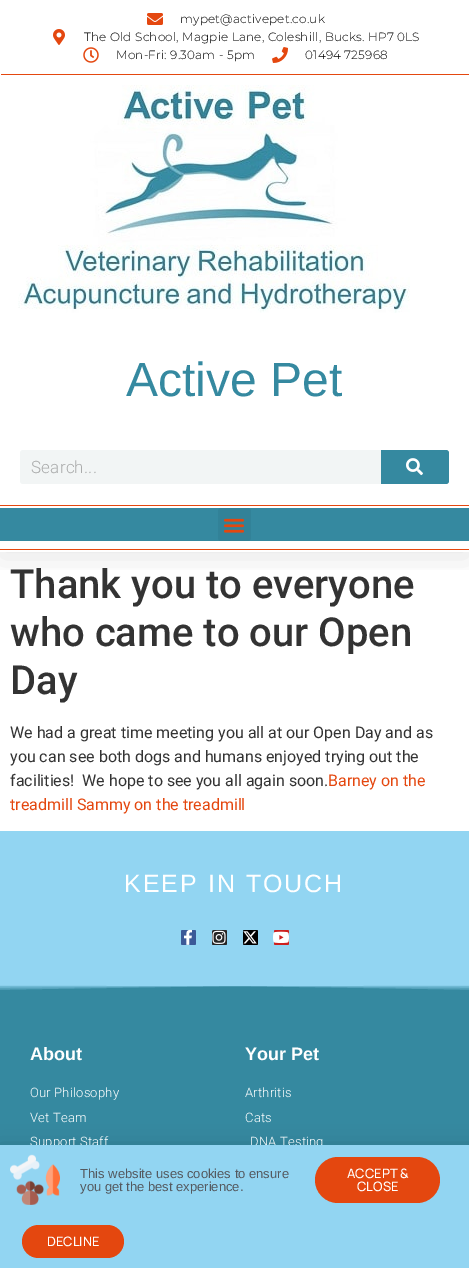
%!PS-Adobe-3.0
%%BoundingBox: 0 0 469 1268
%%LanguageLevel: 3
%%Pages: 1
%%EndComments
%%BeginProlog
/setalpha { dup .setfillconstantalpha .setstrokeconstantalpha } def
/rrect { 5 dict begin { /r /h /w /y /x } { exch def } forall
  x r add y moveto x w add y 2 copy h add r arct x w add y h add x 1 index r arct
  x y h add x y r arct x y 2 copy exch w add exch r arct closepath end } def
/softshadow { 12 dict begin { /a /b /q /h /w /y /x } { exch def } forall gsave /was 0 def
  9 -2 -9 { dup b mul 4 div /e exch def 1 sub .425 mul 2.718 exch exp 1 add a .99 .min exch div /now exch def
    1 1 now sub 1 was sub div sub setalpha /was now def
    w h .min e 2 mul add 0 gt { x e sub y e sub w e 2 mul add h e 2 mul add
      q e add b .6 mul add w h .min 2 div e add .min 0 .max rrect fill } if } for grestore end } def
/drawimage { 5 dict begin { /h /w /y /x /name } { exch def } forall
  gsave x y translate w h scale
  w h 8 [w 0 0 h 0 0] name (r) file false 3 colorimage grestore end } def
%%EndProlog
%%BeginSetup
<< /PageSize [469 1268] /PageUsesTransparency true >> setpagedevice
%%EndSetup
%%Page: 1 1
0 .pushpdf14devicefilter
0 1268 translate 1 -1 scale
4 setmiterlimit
1 setgray
0 0 469 1268 rectfill
gsave
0 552 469 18 rectclip
0 setgray
0 5 469 552 0 15 0.1 softshadow
grestore
(images/1.raw) 147 13 16 12 drawimage
(images/2.raw) 53 29 12 16 drawimage
(images/3.raw) 83 47 16 16 drawimage
(images/4.raw) 272 47 16 16 drawimage
0.894 0.278 0.059 setrgbcolor
1 74 468 1 rectfill
(images/5.raw) 18 85 392 228 drawimage
0.949 0.961 0.961 setrgbcolor
20 450 429 34 3 rrect fill
0.208 0.537 0.627 setrgbcolor
newpath 381 450 moveto 446 450 lineto 447.5 450 449 451.5 449 453 curveto 449 481 lineto 449 482.5 447.5 484 446 484 curveto 381 484 lineto closepath fill
(images/6.raw) 406 458 17 18 drawimage
0.894 0.278 0.059 setrgbcolor
0 505 469 1 rectfill
0.208 0.537 0.627 setrgbcolor
0 508 469 33 rectfill
0.196 0.51 0.596 setrgbcolor
218 508 33 33 3 rrect fill
(images/7.raw) 223 518 22 15 drawimage
0.894 0.278 0.059 setrgbcolor
0 549 469 1 rectfill
0.573 0.835 0.949 setrgbcolor
0 831 469 153 rectfill
0.231 0.349 0.596 setrgbcolor
181 930 15 15 1.5 rrect fill
(images/8.raw) 184 929 8 16 drawimage
0.149 setgray
212 930 15 15 1.5 rrect fill
(images/9.raw) 212 930 14 14 drawimage
0 setgray
243 930 15 15 1.5 rrect fill
(images/10.raw) 243 931 14 13 drawimage
0.804 0.125 0.122 setrgbcolor
274 930 15 15 1.5 rrect fill
(images/11.raw) 273 931 16 12 drawimage
0.208 0.537 0.627 setrgbcolor
0 985 469 160 rectfill
0.33 setalpha
0.573 0.835 0.949 setrgbcolor
newpath -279 984 moveto -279 994 lineto 235 986 lineto 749 994 lineto 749 984 lineto closepath fill
newpath -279 984 moveto -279 990 lineto 235 986 lineto 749 990 lineto 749 984 lineto closepath fill
newpath -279 984 moveto -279 987 lineto 235 986 lineto 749 987 lineto 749 984 lineto closepath fill
1 setalpha
newpath -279 984 moveto -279 985 lineto 235 986 lineto 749 985 lineto 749 984 lineto closepath fill
0 setgray
-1 1150 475 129 0 11.5 0.2 softshadow
/Montserrat-Light [12 0 0 -12 0 0] selectfont
180 23 moveto 0.2 0 (mypet@activepet.co.uk) ashow
84 41 moveto 0.2 0 (The Old School, Magpie Lane, Coleshill, Bucks. HP7 0LS) ashow
116 59 moveto 0.2 0 (Mon-Fri: 9.30am - 5pm) ashow
305 59 moveto 0.2 0 (01494 725968) ashow
/LiberationSans-Regular [48 0 0 -48 0 0] selectfont
0.208 0.537 0.627 setrgbcolor
126 396 moveto (Active Pet) show
/Roboto-Light [17 0 0 -17 0 0] selectfont
0.667 0.671 0.671 setrgbcolor
31 473 moveto 0.2 0 (Search...) ashow
/Roboto-Medium [40 0 0 -40 0 0] selectfont
0.2 setgray
10 598 moveto (Thank you to everyone) show
10 646 moveto (who came to our Open) show
10 694 moveto (Day) show
/Roboto-Regular [16 0 0 -16 0 0] selectfont
10 738 moveto (We had a great time meeting you all at our Open Day and as) show
10 762 moveto (you can see both dogs and humans enjoyed trying out the) show
10 786 moveto (facilities!  We hope to see you all again soon.) show
0.894 0.278 0.059 setrgbcolor
328 786 moveto (Barney on the) show
10 810 moveto (treadmill Sammy on the treadmill) show
/LiberationSans-Regular [25 0 0 -25 0 0] selectfont
1 setgray
124 892 moveto 2 0 (KEEP IN TOUCH) ashow
/LiberationSans-Bold [18 0 0 -18 0 0] selectfont
30 1060 moveto (About) show
/Roboto-Light [13 0 0 -13 0 0] selectfont
30 1097 moveto 0.2 0 (Our Philosophy) ashow
30 1122 moveto 0.2 0 (Vet Team) ashow
30 1146 moveto 0.2 0 (Support Staff) ashow
/LiberationSans-Bold [18 0 0 -18 0 0] selectfont
245 1060 moveto (Your Pet) show
/Roboto-Light [13 0 0 -13 0 0] selectfont
245 1097 moveto 0.2 0 (Arthritis) ashow
245 1122 moveto 0.2 0 (Cats) ashow
250 1146 moveto 0.2 0 (DNA Testing) ashow
0.573 0.835 0.949 setrgbcolor
0 1145 469 123 rectfill
(images/12.raw) 10 1154 50 51 drawimage
/LiberationSans-Regular [13 0 0 -13 0 0] selectfont
0.329 0.349 0.373 setrgbcolor
80 1178 moveto (This website uses cookies to ensure) show
80 1191 moveto (you get the best experience.) show
0.894 0.278 0.059 setrgbcolor
315 1157 125 46 23 rrect fill
/Manrope-Medium [13 0 0 -13 0 0] selectfont
1 setgray
347 1178 moveto (ACCEPT &) show
357 1191 moveto (CLOSE) show
0.894 0.278 0.059 setrgbcolor
22 1225 102 33 16.5 rrect fill
1 setgray
47 1246 moveto (DECLINE) show
.poppdf14devicefilter showpage
%%EOF
